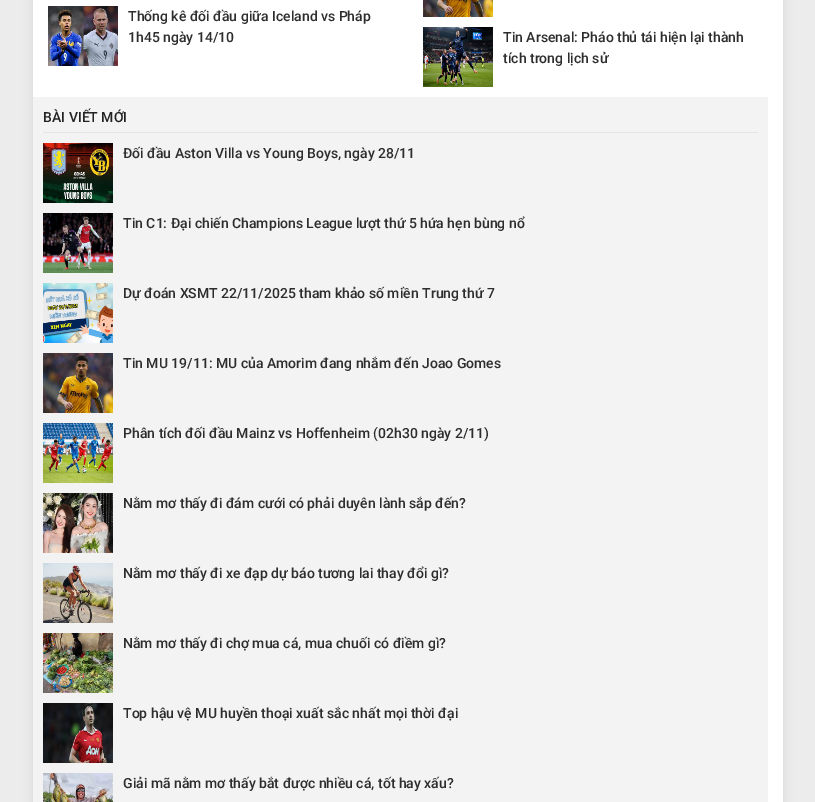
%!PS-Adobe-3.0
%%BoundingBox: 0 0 815 802
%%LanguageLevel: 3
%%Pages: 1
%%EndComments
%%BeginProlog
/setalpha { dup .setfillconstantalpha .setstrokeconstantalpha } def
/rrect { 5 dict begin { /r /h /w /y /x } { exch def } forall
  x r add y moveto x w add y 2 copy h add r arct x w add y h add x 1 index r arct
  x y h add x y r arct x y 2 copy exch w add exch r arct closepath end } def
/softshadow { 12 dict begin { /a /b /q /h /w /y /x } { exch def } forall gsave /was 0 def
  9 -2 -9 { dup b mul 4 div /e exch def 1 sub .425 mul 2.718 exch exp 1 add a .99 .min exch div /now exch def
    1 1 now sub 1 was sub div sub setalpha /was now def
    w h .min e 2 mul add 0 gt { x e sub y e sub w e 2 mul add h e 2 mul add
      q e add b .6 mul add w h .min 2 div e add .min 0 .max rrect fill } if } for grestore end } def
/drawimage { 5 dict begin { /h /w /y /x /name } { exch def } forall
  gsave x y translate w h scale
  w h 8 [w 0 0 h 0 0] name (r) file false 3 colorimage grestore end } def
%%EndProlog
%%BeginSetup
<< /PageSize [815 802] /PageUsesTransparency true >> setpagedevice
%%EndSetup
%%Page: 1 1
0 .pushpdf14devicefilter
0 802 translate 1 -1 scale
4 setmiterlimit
0.925 setgray
0 0 815 802 rectfill
0 setgray
33 -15 750 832 0 5 0.09 softshadow
1 setgray
33 0 750 802 rectfill
(images/1.raw) 48 6 70 60 drawimage
(images/2.raw) 423 0 70 17 drawimage
(images/3.raw) 423 27 70 60 drawimage
0.953 setgray
33 97 735 705 rectfill
0.894 setgray
43 132 715 1 rectfill
(images/4.raw) 43 143 70 60 drawimage
(images/5.raw) 43 213 70 60 drawimage
(images/6.raw) 43 283 70 60 drawimage
(images/7.raw) 43 353 70 60 drawimage
(images/8.raw) 43 423 70 60 drawimage
(images/9.raw) 43 493 70 60 drawimage
(images/10.raw) 43 563 70 60 drawimage
(images/11.raw) 43 633 70 60 drawimage
(images/12.raw) 43 703 70 60 drawimage
(images/13.raw) 43 773 70 29 drawimage
/Roboto-Medium [14 0 0 -14 0 0] selectfont
0.176 setgray
128 21 moveto (Thống kê đối đầu giữa Iceland vs Pháp) show
128 42 moveto (1h45 ngày 14/10) show
503 42 moveto (Tin Arsenal: Pháo thủ tái hiện lại thành) show
503 63 moveto (tích trong lịch sử) show
0.133 setgray
43 122 moveto (BÀI VIẾT MỚI) show
0.176 setgray
123 158 moveto (Đối đầu Aston Villa vs Young Boys, ngày 28/11) show
123 228 moveto (Tin C1: Đại chiến Champions League lượt thứ 5 hứa hẹn bùng nổ) show
123 298 moveto (Dự đoán XSMT 22/11/2025 tham khảo số miền Trung thứ 7) show
123 368 moveto (Tin MU 19/11: MU của Amorim đang nhắm đến Joao Gomes) show
123 438 moveto (Phân tích đối đầu Mainz vs Hoffenheim \(02h30 ngày 2/11\)) show
123 508 moveto (Nằm mơ thấy đi đám cưới có phải duyên lành sắp đến?) show
123 578 moveto (Nằm mơ thấy đi xe đạp dự báo tương lai thay đổi gì?) show
123 648 moveto (Nằm mơ thấy đi chợ mua cá, mua chuối có điềm gì?) show
123 718 moveto (Top hậu vệ MU huyền thoại xuất sắc nhất mọi thời đại) show
123 788 moveto (Giải mã nằm mơ thấy bắt được nhiều cá, tốt hay xấu?) show
.poppdf14devicefilter showpage
%%EOF
